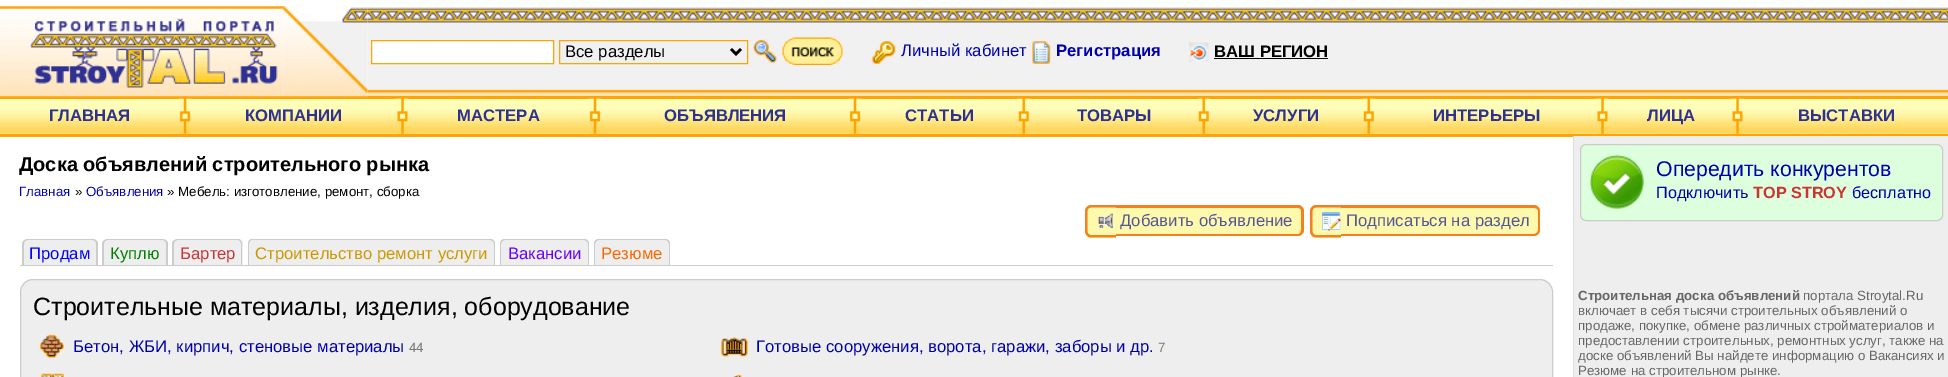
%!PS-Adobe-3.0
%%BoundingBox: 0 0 1948 377
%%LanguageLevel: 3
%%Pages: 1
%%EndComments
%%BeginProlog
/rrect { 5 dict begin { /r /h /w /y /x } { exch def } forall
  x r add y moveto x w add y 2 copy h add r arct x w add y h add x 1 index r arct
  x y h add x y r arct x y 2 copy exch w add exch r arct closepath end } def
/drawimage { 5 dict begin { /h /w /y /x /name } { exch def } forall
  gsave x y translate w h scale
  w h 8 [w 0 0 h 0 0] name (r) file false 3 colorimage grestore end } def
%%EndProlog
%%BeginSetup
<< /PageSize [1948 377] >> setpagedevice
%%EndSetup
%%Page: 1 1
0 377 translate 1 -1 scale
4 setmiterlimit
1 setgray
0 0 1948 377 rectfill
1 0.643 0.012 setrgbcolor
0 96 1948 3 rectfill
(images/1.raw) 0 6 284 91 drawimage
(images/3.raw) 367 7 1581 89 drawimage
(images/2.raw) 283 6 85 91 drawimage
1 setgray
newpath 371.5 40.5 moveto 553.5 40.5 lineto 553.5 63.5 lineto 371.5 63.5 lineto closepath gsave fill grestore
1 0.643 0.004 setrgbcolor
stroke
559.5 40.5 188 23 rectstroke
0 setgray
2.5 setlinewidth
newpath 731 49 moveto 736 54 lineto 741 49 lineto stroke
(images/4.raw) 753 39 24 25 drawimage
(images/5.raw) 782 37 61 28 drawimage
(images/6.raw) 872 40 24 24 drawimage
(images/7.raw) 1032 41 19 23 drawimage
(images/8.raw) 1189 42 20 20 drawimage
1214 58 114 1 rectfill
(images/9.raw) 0 99 1948 35 drawimage
1 0.643 0.012 setrgbcolor
0 134 1948 3 rectfill
(images/10.raw) 178 98 14 36 drawimage
(images/11.raw) 396 98 13 36 drawimage
(images/10.raw) 588 98 14 36 drawimage
(images/12.raw) 848 98 14 36 drawimage
(images/13.raw) 1017 98 13 36 drawimage
(images/13.raw) 1197 98 13 36 drawimage
(images/13.raw) 1362 98 13 36 drawimage
(images/11.raw) 1596 98 13 36 drawimage
(images/11.raw) 1731 98 13 36 drawimage
1 0.976 0.678 setrgbcolor
newpath 1091 205 moveto 1116 205 lineto 1116 238 lineto 1091 238 lineto 1087.5 238 1085 235.5 1085 232 curveto 1085 211 lineto 1085 207.5 1087.5 205 1091 205 curveto closepath fill
0.961 0.506 0.118 setrgbcolor
newpath 1091 205 moveto 1116 205 lineto 1116 237.5 lineto 1091 237.5 lineto 1088 237.5 1085 234.5 1085 231 curveto 1085 211 lineto 1085 208 1088 205 1091 205 curveto closepath 1091 207.5 moveto 1116 207.5 lineto 1116 235 lineto 1091 235 lineto 1089 235 1087.5 233.5 1087.5 231 curveto 1087.5 211 lineto 1087.5 209 1089 207.5 1091 207.5 curveto closepath eofill
(images/14.raw) 1098 213 15 15 drawimage
1 0.976 0.678 setrgbcolor
newpath 1116 205 moveto 1298 205 lineto 1301.5 205 1304 207.5 1304 211 curveto 1304 230 lineto 1304 233.5 1301.5 236 1298 236 curveto 1116 236 lineto closepath fill
0.961 0.506 0.118 setrgbcolor
newpath 1116 205 moveto 1298 205 lineto 1301 205 1304 208 1304 211 curveto 1304 230 lineto 1304 233 1301 236 1298 236 curveto 1116 236 lineto closepath 1116 208 moveto 1298 208 lineto 1300 208 1301 209 1301 211 curveto 1301 230 lineto 1301 232 1300 234 1298 234 curveto 1116 234 lineto closepath eofill
1 0.976 0.678 setrgbcolor
newpath 1316 205 moveto 1341 205 lineto 1341 238 lineto 1316 238 lineto 1312.5 238 1310 235.5 1310 232 curveto 1310 211 lineto 1310 207.5 1312.5 205 1316 205 curveto closepath fill
0.961 0.506 0.118 setrgbcolor
newpath 1316 205 moveto 1341 205 lineto 1341 237.5 lineto 1316 237.5 lineto 1313 237.5 1310 234.5 1310 231 curveto 1310 211 lineto 1310 208 1313 205 1316 205 curveto closepath 1316 207.5 moveto 1341 207.5 lineto 1341 235 lineto 1316 235 lineto 1314 235 1312.5 233.5 1312.5 231 curveto 1312.5 211 lineto 1312.5 209 1314 207.5 1316 207.5 curveto closepath eofill
1 0.976 0.678 setrgbcolor
newpath 1341 205 moveto 1534 205 lineto 1537.5 205 1540 207.5 1540 211 curveto 1540 230 lineto 1540 233.5 1537.5 236 1534 236 curveto 1341 236 lineto closepath fill
0.961 0.506 0.118 setrgbcolor
newpath 1341 205 moveto 1534 205 lineto 1537 205 1540 208 1540 211 curveto 1540 230 lineto 1540 233 1537 236 1534 236 curveto 1341 236 lineto closepath 1341 208 moveto 1534 208 lineto 1536 208 1538 209 1538 211 curveto 1538 230 lineto 1538 232 1536 234 1534 234 curveto 1341 234 lineto closepath eofill
(images/15.raw) 1322 212 20 19 drawimage
0.8 setgray
20 265 1533 1 rectfill
0.933 setgray
newpath 28 239 moveto 93 239 lineto 96 239 98 241 98 244 curveto 98 265 lineto 23 265 lineto 23 244 lineto 23 241 25 239 28 239 curveto closepath fill
0.8 setgray
newpath 28 239 moveto 92 239 lineto 95 239 98 241 98 244 curveto 98 265 lineto 22 265 lineto 22 244 lineto 22 241 25 239 28 239 curveto closepath 28 240 moveto 92 240 lineto 95 240 96 242 96 244 curveto 96 265 lineto 24 265 lineto 24 244 lineto 24 242 25 240 28 240 curveto closepath eofill
0.933 setgray
newpath 108 239 moveto 163 239 lineto 166 239 168 241 168 244 curveto 168 265 lineto 103 265 lineto 103 244 lineto 103 241 105 239 108 239 curveto closepath fill
0.8 setgray
newpath 108 239 moveto 162 239 lineto 165 239 168 241 168 244 curveto 168 265 lineto 102 265 lineto 102 244 lineto 102 241 105 239 108 239 curveto closepath 108 240 moveto 162 240 lineto 165 240 166 242 166 244 curveto 166 265 lineto 104 265 lineto 104 244 lineto 104 242 105 240 108 240 curveto closepath eofill
0.933 setgray
newpath 178 239 moveto 238 239 lineto 241 239 243 241 243 244 curveto 243 265 lineto 173 265 lineto 173 244 lineto 173 241 175 239 178 239 curveto closepath fill
0.8 setgray
newpath 178 239 moveto 238 239 lineto 240 239 242 241 242 244 curveto 242 265 lineto 172 265 lineto 172 244 lineto 172 241 175 239 178 239 curveto closepath 178 240 moveto 238 240 lineto 240 240 241 242 241 244 curveto 241 265 lineto 174 265 lineto 174 244 lineto 174 242 175 240 178 240 curveto closepath eofill
0.933 setgray
newpath 253 239 moveto 490 239 lineto 493 239 495 241 495 244 curveto 495 265 lineto 248 265 lineto 248 244 lineto 248 241 250 239 253 239 curveto closepath fill
0.8 setgray
newpath 252 239 moveto 490 239 lineto 493 239 495 241 495 244 curveto 495 265 lineto 248 265 lineto 248 244 lineto 248 241 250 239 252 239 curveto closepath 252 240 moveto 490 240 lineto 492 240 494 242 494 244 curveto 494 265 lineto 249 265 lineto 249 244 lineto 249 242 250 240 252 240 curveto closepath eofill
0.933 setgray
newpath 505 239 moveto 584 239 lineto 587 239 589 241 589 244 curveto 589 265 lineto 500 265 lineto 500 244 lineto 500 241 502 239 505 239 curveto closepath fill
0.8 setgray
newpath 505 239 moveto 584 239 lineto 587 239 589 241 589 244 curveto 589 265 lineto 500 265 lineto 500 244 lineto 500 241 502 239 505 239 curveto closepath 505 240 moveto 584 240 lineto 586 240 588 242 588 244 curveto 588 265 lineto 501 265 lineto 501 244 lineto 501 242 503 240 505 240 curveto closepath eofill
0.933 setgray
newpath 599 239 moveto 665 239 lineto 668 239 670 241 670 244 curveto 670 265 lineto 594 265 lineto 594 244 lineto 594 241 596 239 599 239 curveto closepath fill
0.8 setgray
newpath 599 239 moveto 665 239 lineto 668 239 670 241 670 244 curveto 670 265 lineto 594 265 lineto 594 244 lineto 594 241 596 239 599 239 curveto closepath 599 240 moveto 665 240 lineto 667 240 669 242 669 244 curveto 669 265 lineto 595 265 lineto 595 244 lineto 595 242 597 240 599 240 curveto closepath eofill
0.933 setgray
20.5 279.5 1532 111 12.5 rrect gsave fill grestore
0.8 setgray
1 setlinewidth
stroke
(images/16.raw) 39 334 25 24 drawimage
(images/17.raw) 721 337 27 20 drawimage
(images/18.raw) 41 373 23 4 drawimage
(images/19.raw) 733 374 9 3 drawimage
0.933 setgray
1574 136 374 241 rectfill
0.867 setgray
1573 136 1 241 rectfill
0.867 1 0.867 setrgbcolor
1580 144 363 77 6 rrect fill
(images/20.raw) 1589 154 55 55 drawimage
0.8 setgray
1580.5 144.5 362 76 5.5 rrect stroke
/LiberationSans-Regular [16.7 0 0 -16.7 0 0] selectfont
0 setgray
565 57 moveto (Все разделы) show
0 0 0.667 setrgbcolor
901 56 moveto (Личный кабинет) show
/LiberationSans-Bold [16.7 0 0 -16.7 0 0] selectfont
1056 56 moveto (Регистрация) show
0 setgray
1214 57 moveto (ВАШ РЕГИОН) show
0.176 0.196 0.565 setrgbcolor
49 121 moveto (ГЛАВНАЯ) show
245 121 moveto (КОМПАНИИ) show
457 121 moveto (МАСТЕРА) show
664 121 moveto (ОБЪЯВЛЕНИЯ) show
905 121 moveto (СТАТЬИ) show
1077 121 moveto (ТОВАРЫ) show
1253 121 moveto (УСЛУГИ) show
1433 121 moveto (ИНТЕРЬЕРЫ) show
1647 121 moveto (ЛИЦА) show
1798 121 moveto (ВЫСТАВКИ) show
/LiberationSans-Bold [20 0 0 -20 0 0] selectfont
0 setgray
19 171 moveto (Доска объявлений строительного рынка) show
/LiberationSans-Regular [13.3 0 0 -13.3 0 0] selectfont
0 0 0.667 setrgbcolor
19 196 moveto (Главная) show
0 setgray
75 196 moveto (») show
0 0 0.667 setrgbcolor
86 196 moveto (Объявления) show
0 setgray
167 196 moveto (» Мебель: изготовление, ремонт, сборка) show
/LiberationSans-Regular [16.7 0 0 -16.7 0 0] selectfont
0.329 0.337 0.588 setrgbcolor
1120 226 moveto (Добавить объявление) show
1346 226 moveto (Подписаться на раздел) show
0 0 1 setrgbcolor
29 259 moveto (Продам) show
0 0.502 0 setrgbcolor
110 259 moveto (Куплю) show
0.8 0.2 0.2 setrgbcolor
180 259 moveto (Бартер) show
0.8 0.6 0 setrgbcolor
255 259 moveto (Строительство ремонт услуги) show
0.4 0 1 setrgbcolor
508 259 moveto (Вакансии) show
1 0.4 0 setrgbcolor
601 259 moveto (Резюме) show
/LiberationSans-Regular [25 0 0 -25 0 0] selectfont
0 setgray
33 315 moveto (Строительные материалы, изделия, оборудование) show
/LiberationSans-Regular [16.7 0 0 -16.7 0 0] selectfont
0 0 0.667 setrgbcolor
73 352 moveto (Бетон, ЖБИ, кирпич, стеновые материалы) show
/LiberationSans-Regular [13.3 0 0 -13.3 0 0] selectfont
0.467 setgray
409 352 moveto (44) show
/LiberationSans-Regular [16.7 0 0 -16.7 0 0] selectfont
0 0 0.667 setrgbcolor
756 352 moveto (Готовые сооружения, ворота, гаражи, заборы и др.) show
/LiberationSans-Regular [13.3 0 0 -13.3 0 0] selectfont
0.467 setgray
1158 352 moveto (7) show
/LiberationSans-Regular [21.25 0 0 -21.25 0 0] selectfont
0 0 0.667 setrgbcolor
1656 176 moveto (Опередить конкурентов) show
/LiberationSans-Regular [16.25 0 0 -16.25 0 0] selectfont
1656 198 moveto (Подключить) show
/LiberationSans-Bold [16.25 0 0 -16.25 0 0] selectfont
0.8 0.2 0.2 setrgbcolor
1753 198 moveto (TOP STROY) show
/LiberationSans-Regular [16.25 0 0 -16.25 0 0] selectfont
0 0 0.667 setrgbcolor
1852 198 moveto (бесплатно) show
/LiberationSans-Bold [13.3 0 0 -13.3 0 0] selectfont
0.4 setgray
1578 300 moveto (Строительная доска объявлений) show
/LiberationSans-Regular [13.3 0 0 -13.3 0 0] selectfont
1803 300 moveto (портала Stroytal.Ru) show
1578 315 moveto (включает в себя тысячи строительных объявлений о) show
1578 330 moveto (продаже, покупке, обмене различных стройматериалов и) show
1578 345 moveto (предоставлении строительных, ремонтных услуг, также на) show
1578 360 moveto (доске объявлений Вы найдете информацию о Вакансиях и) show
1578 375 moveto (Резюме на строительном рынке.) show
showpage
%%EOF
